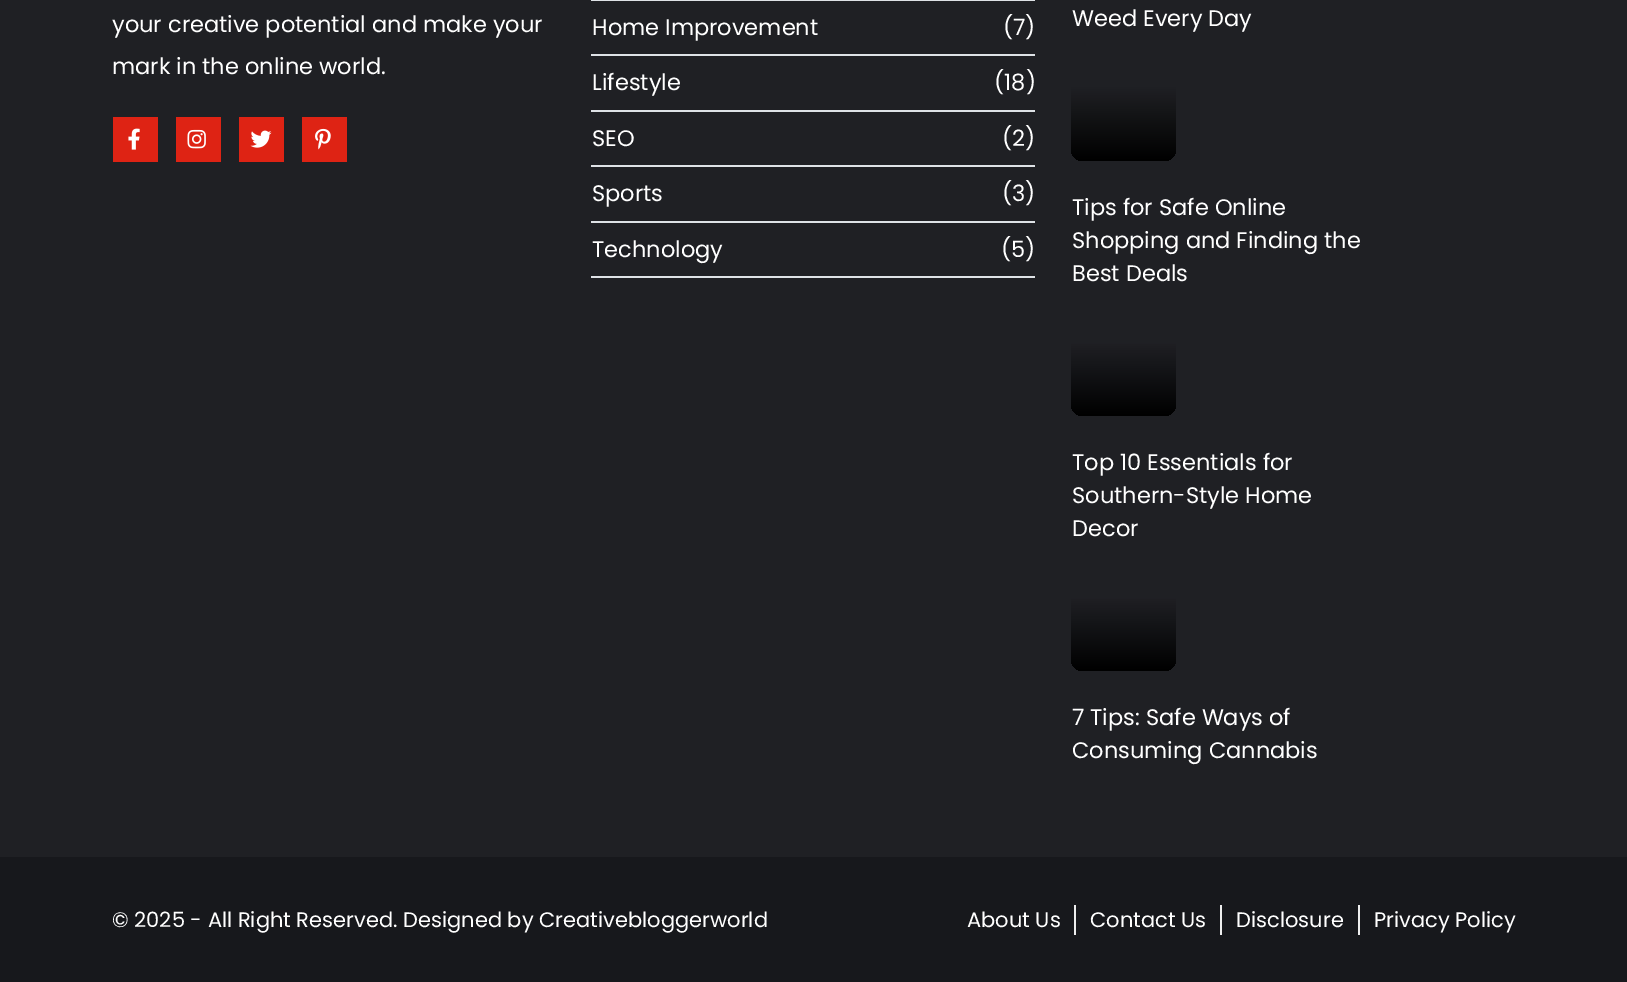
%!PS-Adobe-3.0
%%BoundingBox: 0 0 1627 982
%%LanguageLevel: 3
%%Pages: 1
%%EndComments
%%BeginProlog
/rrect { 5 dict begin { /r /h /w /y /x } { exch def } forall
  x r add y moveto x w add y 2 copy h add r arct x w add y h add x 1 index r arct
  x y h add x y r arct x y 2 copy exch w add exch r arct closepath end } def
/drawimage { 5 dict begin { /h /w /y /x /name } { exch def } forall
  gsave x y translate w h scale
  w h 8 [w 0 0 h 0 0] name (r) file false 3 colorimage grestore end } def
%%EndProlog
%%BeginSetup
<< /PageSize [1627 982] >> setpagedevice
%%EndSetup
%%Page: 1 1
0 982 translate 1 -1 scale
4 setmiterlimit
0.09 0.094 0.11 setrgbcolor
0 0 1627 982 rectfill
0.122 0.125 0.141 setrgbcolor
0 0 1627 857 rectfill
0.871 0.137 0.078 setrgbcolor
113 117 45 45 rectfill
(images/1.raw) 128 128 12 22 drawimage
176 117 45 45 rectfill
(images/2.raw) 187 129 19 20 drawimage
239 117 45 45 rectfill
(images/3.raw) 250 130 22 18 drawimage
302 117 45 45 rectfill
(images/4.raw) 315 128 16 22 drawimage
0.871 0.886 0.902 setrgbcolor
591 0 444 1 rectfill
591 54 444 2 rectfill
591 110 444 2 rectfill
591 165 444 2 rectfill
591 221 444 2 rectfill
591 276 444 2 rectfill
gsave 1071 56 105 105 12 rrect clip newpath
<< /ShadingType 2 /ColorSpace /DeviceRGB /Coords [1124 55 1124 161] /Extend [true true] /Function << /FunctionType 3 /Domain [0 1] /Functions [<< /FunctionType 2 /Domain [0 1] /C0 [0.122 0.125 0.141] /C1 [0.122 0.125 0.141] /N 1 >> << /FunctionType 2 /Domain [0 1] /C0 [0.122 0.125 0.141] /C1 [0 0 0] /N 1 >>] /Bounds [0.3] /Encode [0 1 0 1] >> >> shfill grestore
gsave 1071 311 105 105 12 rrect clip newpath
<< /ShadingType 2 /ColorSpace /DeviceRGB /Coords [1124 311 1124 416] /Extend [true true] /Function << /FunctionType 3 /Domain [0 1] /Functions [<< /FunctionType 2 /Domain [0 1] /C0 [0.122 0.125 0.141] /C1 [0.122 0.125 0.141] /N 1 >> << /FunctionType 2 /Domain [0 1] /C0 [0.122 0.125 0.141] /C1 [0 0 0] /N 1 >>] /Bounds [0.3] /Encode [0 1 0 1] >> >> shfill grestore
gsave 1071 566 105 105 12 rrect clip newpath
<< /ShadingType 2 /ColorSpace /DeviceRGB /Coords [1124 566 1124 671] /Extend [true true] /Function << /FunctionType 3 /Domain [0 1] /Functions [<< /FunctionType 2 /Domain [0 1] /C0 [0.122 0.125 0.141] /C1 [0.122 0.125 0.141] /N 1 >> << /FunctionType 2 /Domain [0 1] /C0 [0.122 0.125 0.141] /C1 [0 0 0] /N 1 >>] /Bounds [0.3] /Encode [0 1 0 1] >> >> shfill grestore
0.933 setgray
1074 905 2 30 rectfill
1220 905 2 30 rectfill
1358 905 2 30 rectfill
/Poppins-Regular [22.5 0 0 -22.5 0 0] selectfont
1 setgray
112 32 moveto (your creative potential and make your) show
112 74 moveto (mark in the online world.) show
592 35 moveto (Home Improvement) show
1003 35 moveto (\(7\)) show
592 90 moveto (Lifestyle) show
994 90 moveto (\(18\)) show
592 146 moveto (SEO) show
1002 146 moveto (\(2\)) show
592 201 moveto (Sports) show
1002 201 moveto (\(3\)) show
592 257 moveto (Technology) show
1001 257 moveto (\(5\)) show
1072 26 moveto (Weed Every Day) show
1072 215 moveto (Tips for Safe Online) show
1072 248 moveto (Shopping and Finding the) show
1072 281 moveto (Best Deals) show
1072 470 moveto (Top 10 Essentials for) show
1072 503 moveto (Southern-Style Home) show
1072 536 moveto (Decor) show
1072 725 moveto (7 Tips: Safe Ways of) show
1072 758 moveto (Consuming Cannabis) show
/Poppins-Regular [21 0 0 -21 0 0] selectfont
112 927 moveto (© 2025 - All Right Reserved. Designed by Creativebloggerworld) show
967 927 moveto (About Us) show
1090 927 moveto (Contact Us) show
1236 927 moveto (Disclosure) show
1374 927 moveto (Privacy Policy) show
showpage
%%EOF
